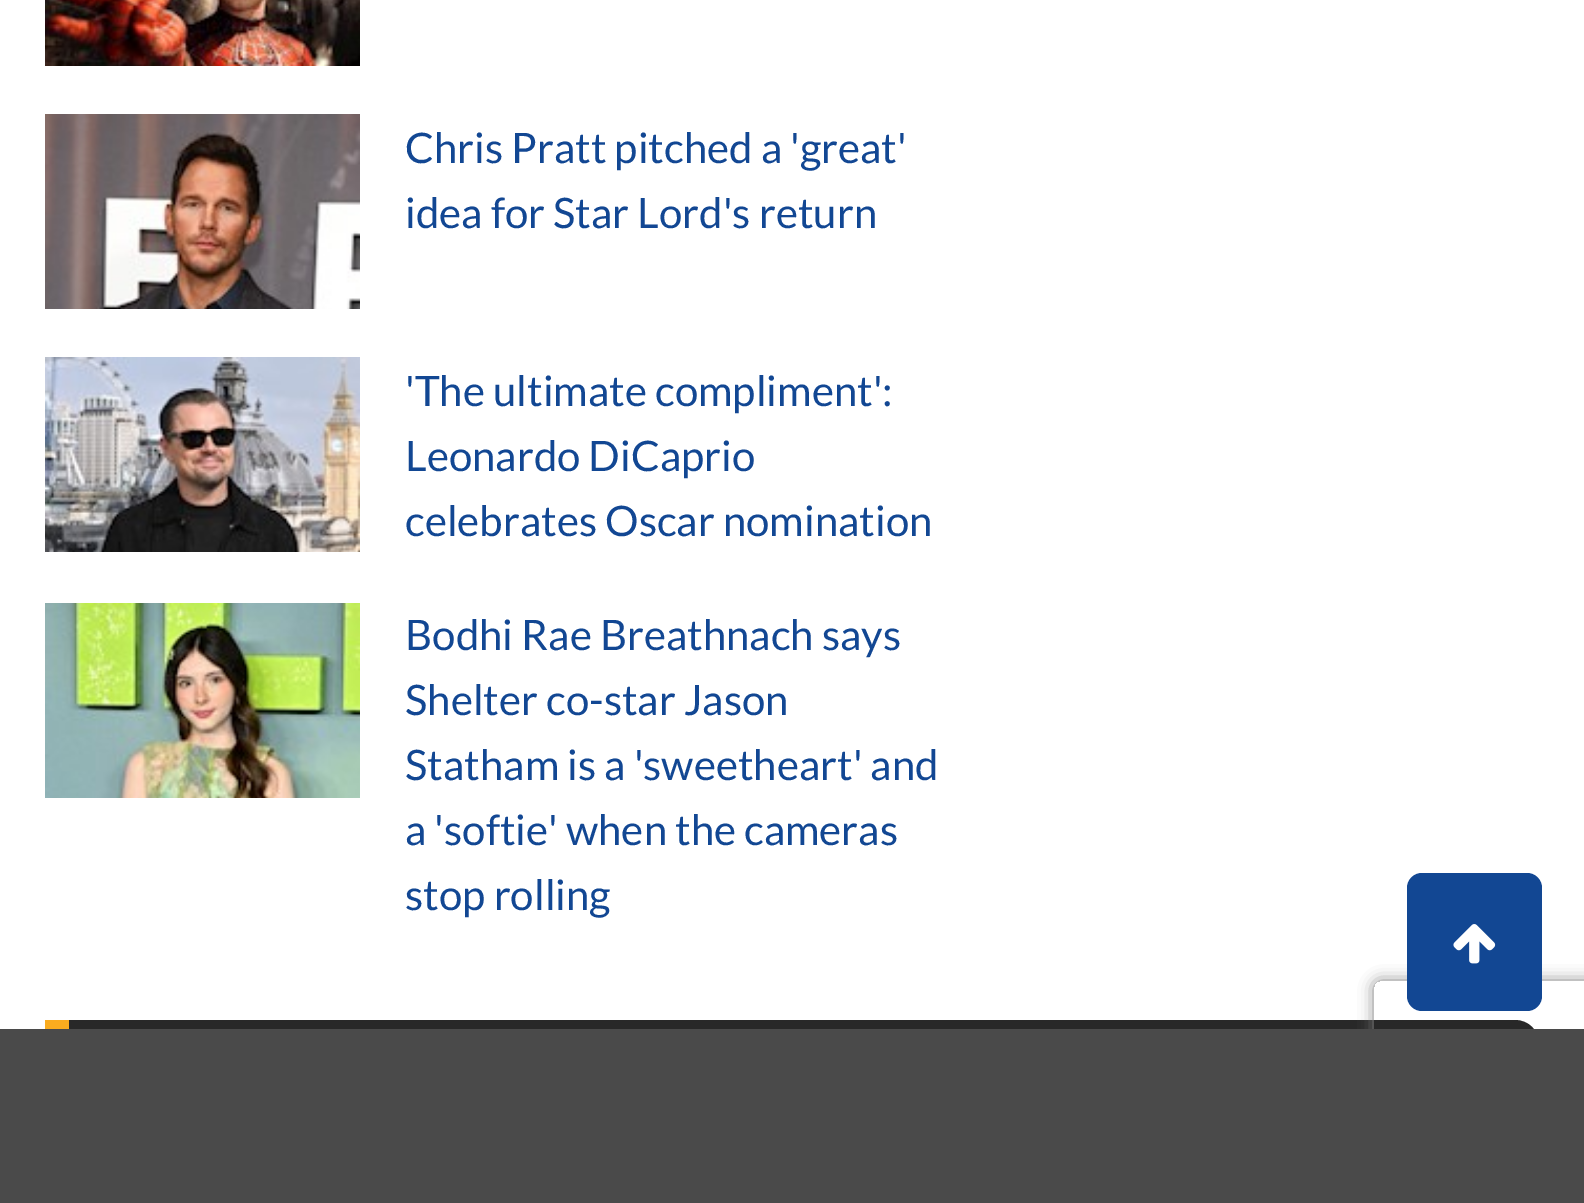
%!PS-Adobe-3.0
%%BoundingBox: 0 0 1584 1203
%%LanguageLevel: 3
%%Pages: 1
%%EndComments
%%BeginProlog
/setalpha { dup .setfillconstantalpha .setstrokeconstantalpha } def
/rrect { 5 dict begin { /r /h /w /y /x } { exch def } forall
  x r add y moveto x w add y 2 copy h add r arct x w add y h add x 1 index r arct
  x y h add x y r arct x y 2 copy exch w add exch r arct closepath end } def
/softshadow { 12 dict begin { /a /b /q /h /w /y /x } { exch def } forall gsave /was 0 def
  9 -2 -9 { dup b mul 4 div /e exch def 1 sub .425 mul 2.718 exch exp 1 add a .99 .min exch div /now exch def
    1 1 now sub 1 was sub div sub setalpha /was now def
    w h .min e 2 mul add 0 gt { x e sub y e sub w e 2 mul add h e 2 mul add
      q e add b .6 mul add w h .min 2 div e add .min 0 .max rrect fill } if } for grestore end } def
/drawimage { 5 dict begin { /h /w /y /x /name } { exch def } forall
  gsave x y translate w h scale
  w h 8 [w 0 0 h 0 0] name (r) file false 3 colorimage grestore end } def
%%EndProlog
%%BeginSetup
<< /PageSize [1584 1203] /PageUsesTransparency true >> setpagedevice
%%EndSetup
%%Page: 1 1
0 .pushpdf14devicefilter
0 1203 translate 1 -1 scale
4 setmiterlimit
1 setgray
0 0 1584 1203 rectfill
(images/1.raw) 45 0 315 66 drawimage
(images/2.raw) 45 114 315 195 drawimage
(images/3.raw) 45 357 315 195 drawimage
(images/4.raw) 45 603 315 195 drawimage
0.157 setgray
newpath 45 1020 moveto 1515 1020 lineto 1528.5 1020 1539 1030.5 1539 1044 curveto 1539 1176 lineto 45 1176 lineto closepath fill
0.98 0.675 0.122 setrgbcolor
45 1020 24 9 rectfill
gsave
newpath 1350 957 moveto 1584 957 lineto 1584 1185 lineto 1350 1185 lineto closepath 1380 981 moveto 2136 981 lineto 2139.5 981 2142 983.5 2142 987 curveto 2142 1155 lineto 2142 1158.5 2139.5 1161 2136 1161 curveto 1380 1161 lineto 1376.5 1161 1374 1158.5 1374 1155 curveto 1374 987 lineto 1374 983.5 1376.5 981 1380 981 curveto closepath eoclip newpath
0.502 setgray
1374 981 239 180 6 7.5 1 softshadow
grestore
0.071 0.278 0.576 setrgbcolor
1407 873 135 138 15 rrect fill
(images/5.raw) 1453 924 43 40 drawimage
0.29 setgray
0 1029 1584 174 rectfill
/Lato-Regular [42 0 0 -42 0 0] selectfont
0.071 0.278 0.576 setrgbcolor
405 163 moveto (Chris Pratt pitched a 'great') show
405 228 moveto (idea for Star Lord's return) show
405 406 moveto ('The ultimate compliment':) show
405 471 moveto (Leonardo DiCaprio) show
405 536 moveto (celebrates Oscar nomination) show
405 650 moveto (Bodhi Rae Breathnach says) show
405 715 moveto (Shelter co-star Jason) show
405 780 moveto (Statham is a 'sweetheart' and) show
405 845 moveto (a 'softie' when the cameras) show
405 910 moveto (stop rolling) show
.poppdf14devicefilter showpage
%%EOF
